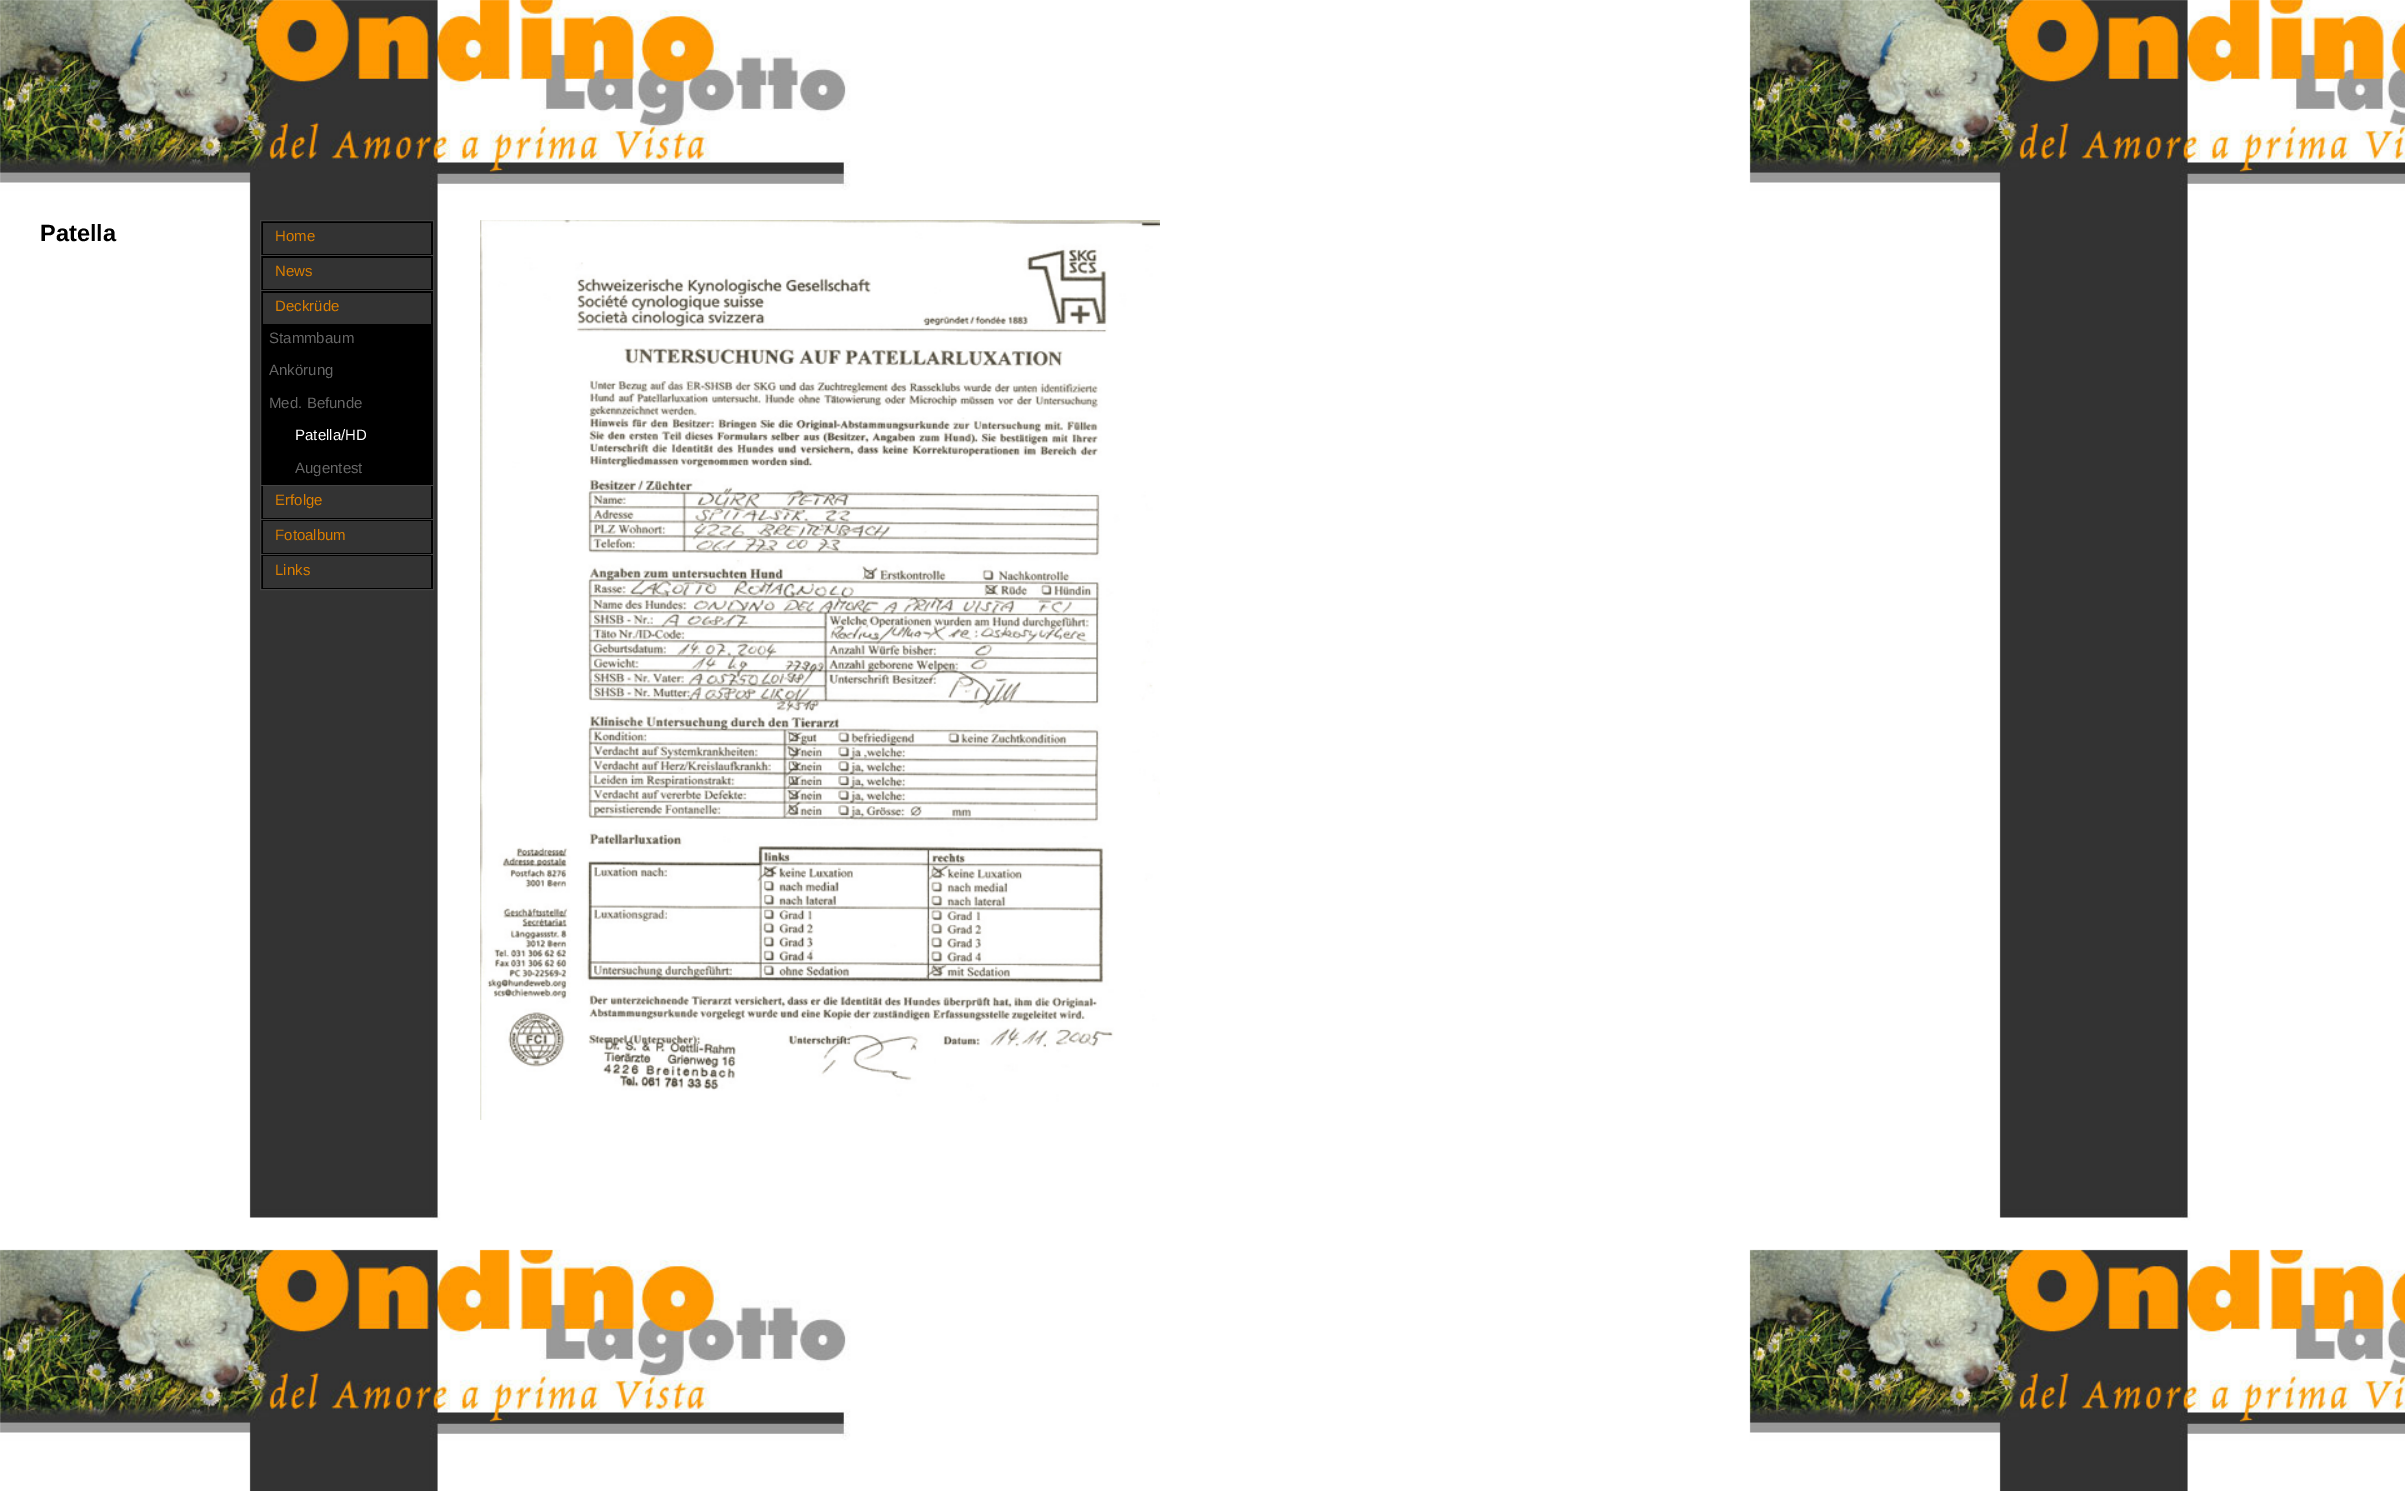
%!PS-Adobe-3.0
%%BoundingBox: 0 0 2405 1491
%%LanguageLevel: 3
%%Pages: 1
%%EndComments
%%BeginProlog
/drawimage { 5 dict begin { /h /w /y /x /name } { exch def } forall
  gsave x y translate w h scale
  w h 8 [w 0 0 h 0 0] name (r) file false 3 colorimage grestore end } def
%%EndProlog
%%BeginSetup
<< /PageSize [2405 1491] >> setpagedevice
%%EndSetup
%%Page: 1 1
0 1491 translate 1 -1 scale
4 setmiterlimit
1 setgray
0 0 2405 1491 rectfill
(images/1.raw) 0 0 2405 1491 drawimage
0 setgray
newpath 260.5 220.5 moveto 433.5 220.5 lineto 433.5 589.5 lineto 260.5 589.5 lineto closepath gsave fill grestore
0.267 setgray
stroke
0.2 setgray
263 223 168 31 rectfill
0.267 setgray
261 255 172 1 rectfill
0.2 setgray
263 258 168 31 rectfill
0.267 setgray
261 290 172 1 rectfill
0.2 setgray
263 293 168 31 rectfill
0.267 setgray
261 485 172 1 rectfill
0.2 setgray
263 486 168 32 rectfill
0.267 setgray
261 519 172 1 rectfill
0.2 setgray
263 521 168 32 rectfill
0.267 setgray
261 554 172 1 rectfill
0.2 setgray
263 556 168 32 rectfill
(images/2.raw) 480 220 680 900 drawimage
/LiberationSans-Bold [23.5 0 0 -23.5 0 0] selectfont
0 setgray
40 241 moveto (Patella) show
/LiberationSans-Regular [15 0 0 -15 0 0] selectfont
0.855 0.494 0 setrgbcolor
275 241 moveto (Home) show
275 276 moveto (News) show
275 311 moveto (Deckrüde) show
275 505 moveto (Erfolge) show
275 540 moveto (Fotoalbum) show
275 575 moveto (Links) show
0.4 setgray
269 343 moveto (Stammbaum) show
269 375 moveto (Ankörung) show
269 408 moveto (Med. Befunde) show
1 setgray
295 440 moveto (Patella/HD) show
0.4 setgray
295 473 moveto (Augentest) show
showpage
%%EOF
